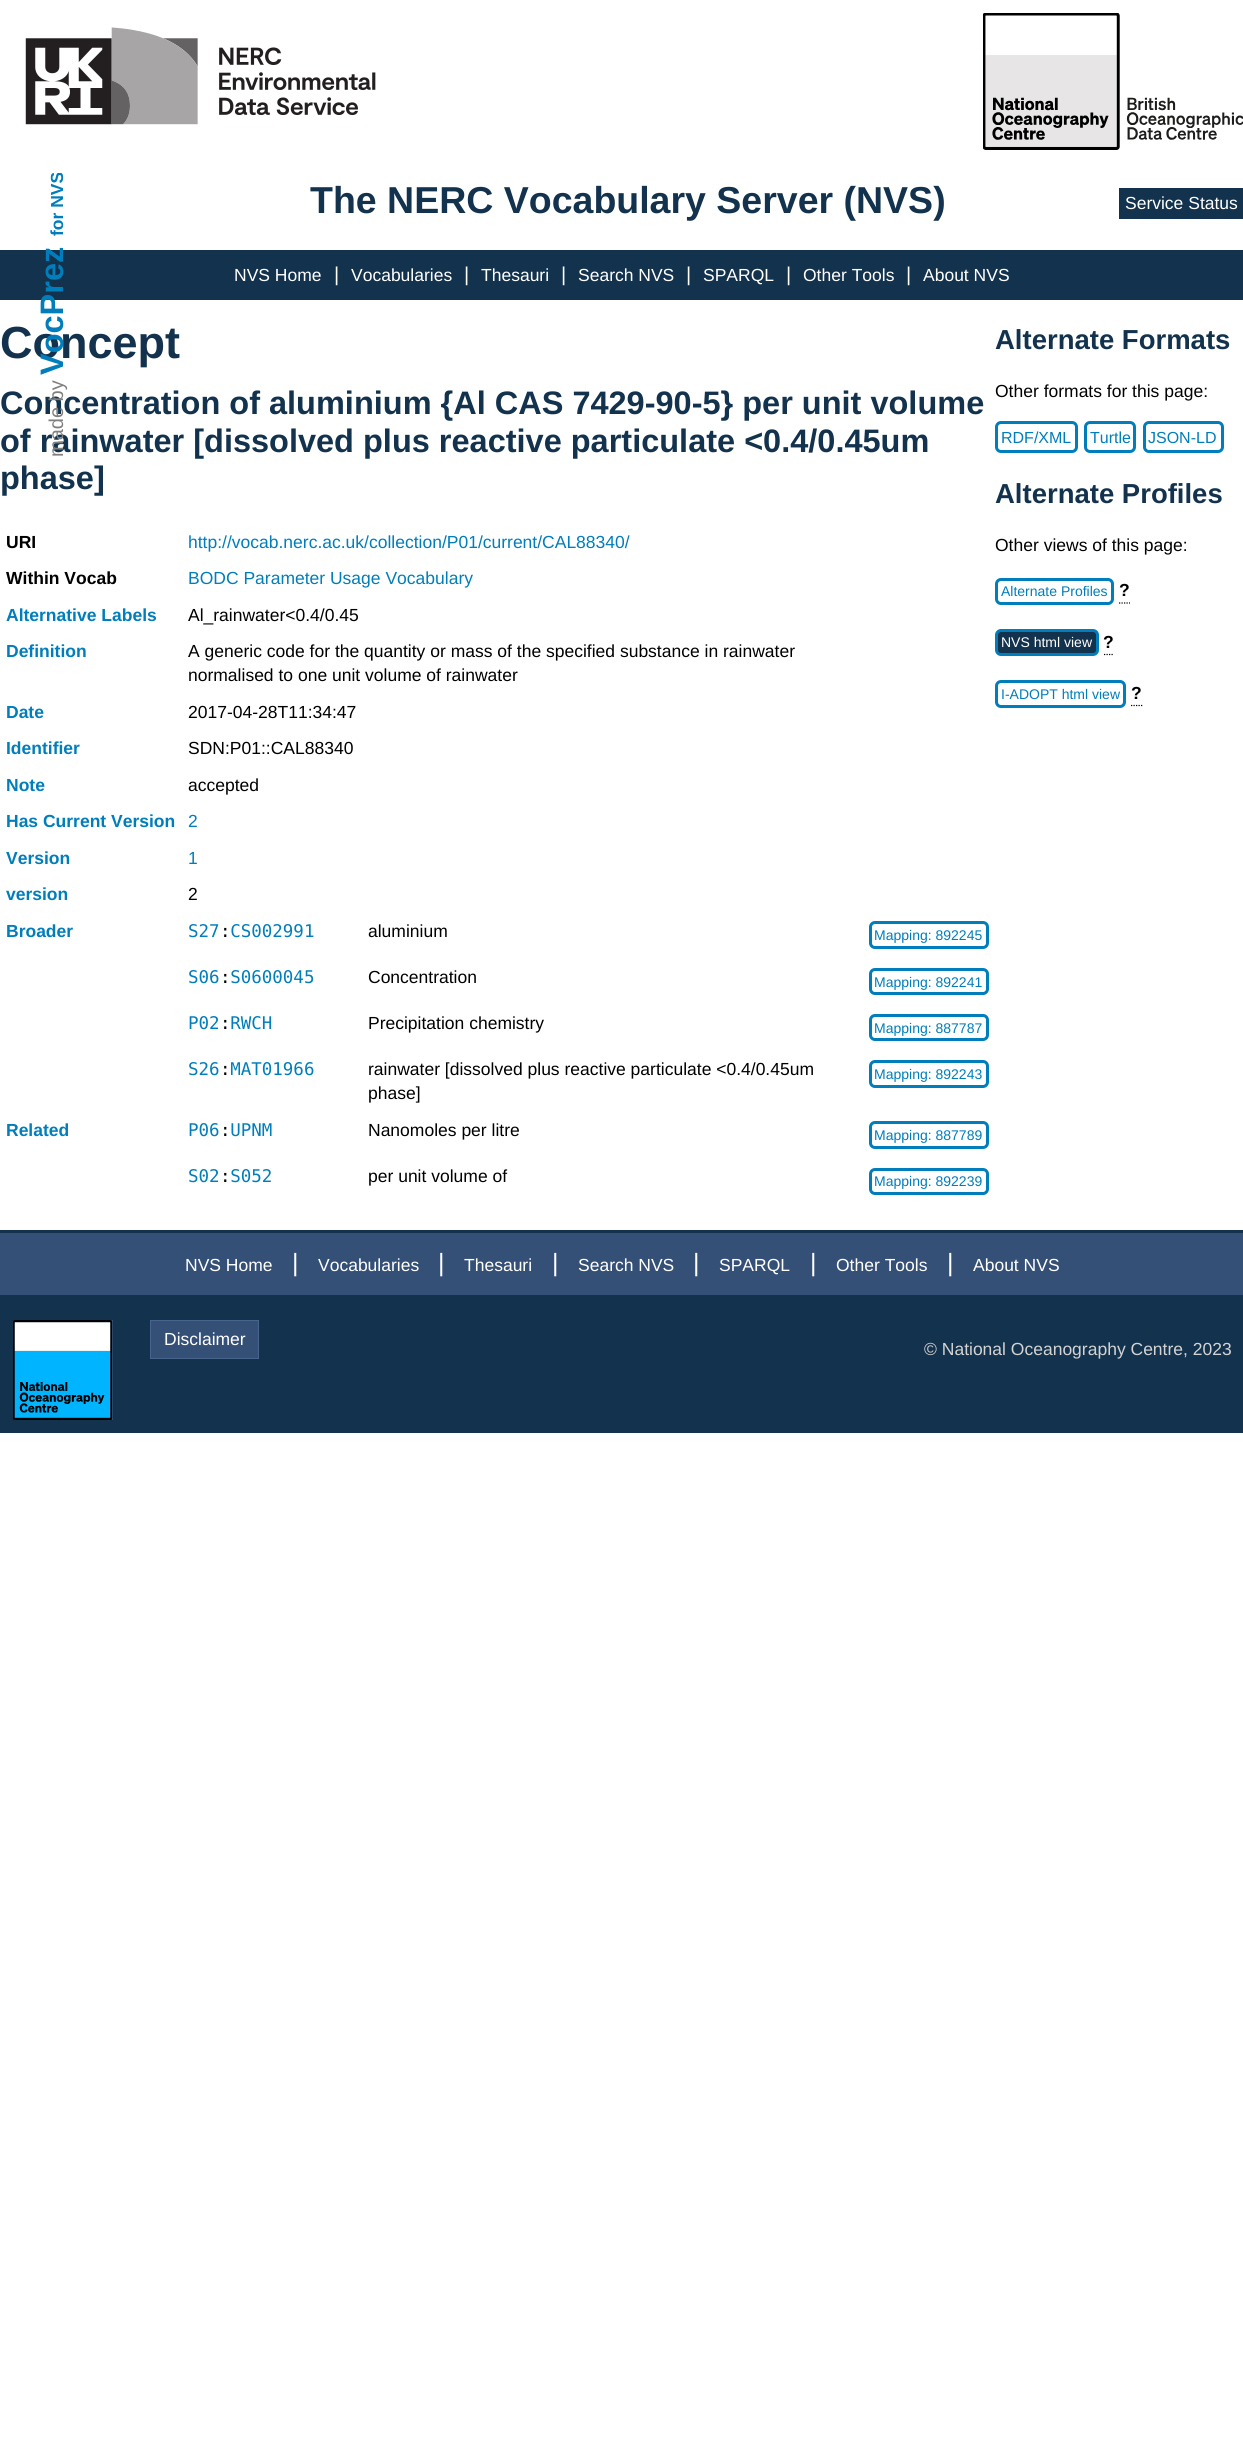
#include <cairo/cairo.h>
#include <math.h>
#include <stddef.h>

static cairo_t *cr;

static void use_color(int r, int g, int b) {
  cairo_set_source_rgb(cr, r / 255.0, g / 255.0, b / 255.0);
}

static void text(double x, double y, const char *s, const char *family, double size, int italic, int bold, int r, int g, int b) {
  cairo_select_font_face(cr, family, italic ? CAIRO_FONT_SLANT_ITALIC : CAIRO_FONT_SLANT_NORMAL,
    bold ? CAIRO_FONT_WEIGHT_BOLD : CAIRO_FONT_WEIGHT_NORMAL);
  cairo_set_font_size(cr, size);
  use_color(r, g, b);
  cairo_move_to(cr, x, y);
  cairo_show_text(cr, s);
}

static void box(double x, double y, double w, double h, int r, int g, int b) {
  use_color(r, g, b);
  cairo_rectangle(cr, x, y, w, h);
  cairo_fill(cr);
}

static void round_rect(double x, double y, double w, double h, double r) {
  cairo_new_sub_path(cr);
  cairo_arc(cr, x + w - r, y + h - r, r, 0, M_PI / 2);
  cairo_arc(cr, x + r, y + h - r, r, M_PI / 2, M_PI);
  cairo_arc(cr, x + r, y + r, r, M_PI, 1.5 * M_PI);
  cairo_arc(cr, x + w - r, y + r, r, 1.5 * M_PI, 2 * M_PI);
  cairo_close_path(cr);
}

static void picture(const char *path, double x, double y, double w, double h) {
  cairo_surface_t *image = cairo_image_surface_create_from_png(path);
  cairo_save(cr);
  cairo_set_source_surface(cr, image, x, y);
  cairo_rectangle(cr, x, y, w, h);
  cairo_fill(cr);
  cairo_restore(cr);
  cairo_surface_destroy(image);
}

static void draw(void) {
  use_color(255, 255, 255);
  cairo_paint(cr);
  picture("img_01.png", 25, 27, 351, 98);
  picture("img_02.png", 983, 13, 260, 137);
  box(1119, 188, 124, 31, 19, 50, 77);
  box(0, 250, 1243, 50, 19, 50, 77);
  round_rect(870.5, 922.5, 117, 25, 4.5);
  use_color(0, 125, 187);
  cairo_set_line_width(cr, 3);
  cairo_stroke(cr);
  round_rect(870.5, 969.5, 117, 24, 4.5);
  cairo_stroke(cr);
  round_rect(870.5, 1015.5, 117, 24, 4.5);
  cairo_stroke(cr);
  round_rect(870.5, 1061.5, 117, 25, 4.5);
  cairo_stroke(cr);
  round_rect(870.5, 1122.5, 117, 25, 4.5);
  cairo_stroke(cr);
  round_rect(870.5, 1169.5, 117, 24, 4.5);
  cairo_stroke(cr);
  round_rect(996.5, 422.5, 80, 29, 4.5);
  cairo_stroke(cr);
  round_rect(1085.5, 422.5, 49, 29, 4.5);
  cairo_stroke(cr);
  round_rect(1144.5, 422.5, 78, 29, 4.5);
  cairo_stroke(cr);
  round_rect(996.5, 579.5, 116, 24, 4.5);
  cairo_stroke(cr);
  cairo_new_path(cr);
  cairo_move_to(cr, 1119, 603);
  cairo_line_to(cr, 1130, 603);
  use_color(0, 0, 0);
  cairo_set_line_width(cr, 1.2);
  cairo_set_dash(cr, (double[]){1.25, 1.25}, 2, 0);
  cairo_stroke(cr);
  use_color(19, 50, 77);
  round_rect(996.5, 630.5, 101, 24, 4.5);
  cairo_fill_preserve(cr);
  use_color(0, 125, 187);
  cairo_set_line_width(cr, 3);
  cairo_set_dash(cr, NULL, 0, 0);
  cairo_stroke(cr);
  cairo_new_path(cr);
  cairo_move_to(cr, 1104, 654.5);
  cairo_line_to(cr, 1114, 654.5);
  use_color(0, 0, 0);
  cairo_set_line_width(cr, 1.2);
  cairo_set_dash(cr, (double[]){1.25, 1.25}, 2, 0);
  cairo_stroke(cr);
  round_rect(996.5, 681.5, 128, 25, 4.5);
  use_color(0, 125, 187);
  cairo_set_line_width(cr, 3);
  cairo_set_dash(cr, NULL, 0, 0);
  cairo_stroke(cr);
  cairo_new_path(cr);
  cairo_move_to(cr, 1131, 705.5);
  cairo_line_to(cr, 1142.5, 705.5);
  use_color(0, 0, 0);
  cairo_set_line_width(cr, 1.2);
  cairo_set_dash(cr, (double[]){1.25, 1.25}, 2, 0);
  cairo_stroke(cr);
  box(0, 1230, 1243, 3, 19, 50, 77);
  box(0, 1233, 1243, 62, 53, 80, 119);
  box(0, 1295, 1243, 138, 19, 50, 77);
  box(13, 1320, 100, 100, 53, 80, 119);
  picture("img_03.png", 13, 1320, 100, 100);
  cairo_rectangle(cr, 150.5, 1320.5, 108, 38);
  cairo_fill_preserve(cr);
  use_color(73, 100, 139);
  cairo_set_line_width(cr, 1);
  cairo_set_dash(cr, NULL, 0, 0);
  cairo_stroke(cr);
  cairo_save(cr);
  cairo_translate(cr, 63, 236);
  cairo_rotate(cr, -90 * M_PI / 180);
  text(0, 0, "for NVS", "Liberation Sans", 17.5, 0, 1, 0, 125, 187);
  cairo_restore(cr);
  text(310, 213, "The NERC Vocabulary Server (NVS)", "Liberation Sans", 37.5, 0, 1, 19, 50, 77);
  text(1125, 209, "Service Status", "Liberation Sans", 17.5, 0, 0, 255, 255, 255);
  text(234, 281, "NVS Home", "Liberation Sans", 17.5, 0, 0, 255, 255, 255);
  text(334, 281, "|", "Liberation Sans", 20, 0, 0, 255, 255, 255);
  text(351, 281, "Vocabularies", "Liberation Sans", 17.5, 0, 0, 255, 255, 255);
  text(464, 281, "|", "Liberation Sans", 20, 0, 0, 255, 255, 255);
  text(481, 281, "Thesauri", "Liberation Sans", 17.5, 0, 0, 255, 255, 255);
  text(561, 281, "|", "Liberation Sans", 20, 0, 0, 255, 255, 255);
  text(578, 281, "Search NVS", "Liberation Sans", 17.5, 0, 0, 255, 255, 255);
  text(686, 281, "|", "Liberation Sans", 20, 0, 0, 255, 255, 255);
  text(703, 281, "SPARQL", "Liberation Sans", 17.5, 0, 0, 255, 255, 255);
  text(786, 281, "|", "Liberation Sans", 20, 0, 0, 255, 255, 255);
  text(803, 281, "Other Tools", "Liberation Sans", 17.5, 0, 0, 255, 255, 255);
  text(906, 281, "|", "Liberation Sans", 20, 0, 0, 255, 255, 255);
  text(923, 281, "About NVS", "Liberation Sans", 17.5, 0, 0, 255, 255, 255);
  text(0, 358, "Concept", "Liberation Sans", 45, 0, 1, 19, 50, 77);
  cairo_save(cr);
  cairo_translate(cr, 63, 375);
  cairo_rotate(cr, -90 * M_PI / 180);
  text(0, 0, "VocPrez", "Liberation Sans", 32.5, 0, 1, 0, 125, 187);
  cairo_restore(cr);
  text(0, 414, "Concentration of aluminium {Al CAS 7429-90-5} per unit volume", "Liberation Sans", 32.5, 0, 1, 19, 50, 77);
  text(0, 452, "of rainwater [dissolved plus reactive particulate <0.4/0.45um", "Liberation Sans", 32.5, 0, 1, 19, 50, 77);
  cairo_save(cr);
  cairo_translate(cr, 63, 457);
  cairo_rotate(cr, -90 * M_PI / 180);
  text(0, 0, "made by", "Liberation Sans", 20, 0, 0, 128, 128, 128);
  cairo_restore(cr);
  text(0, 489, "phase]", "Liberation Sans", 32.5, 0, 1, 19, 50, 77);
  text(6, 548, "URI", "Liberation Sans", 17.5, 0, 1, 0, 0, 0);
  text(188, 548, "http://vocab.nerc.ac.uk/collection/P01/current/CAL88340/", "Liberation Sans", 17.5, 0, 0, 0, 125, 187);
  text(6, 584, "Within Vocab", "Liberation Sans", 17.5, 0, 1, 0, 0, 0);
  text(188, 584, "BODC Parameter Usage Vocabulary", "Liberation Sans", 17.5, 0, 0, 0, 125, 187);
  text(6, 621, "Alternative Labels", "Liberation Sans", 17.5, 0, 1, 0, 125, 187);
  text(188, 621, "Al_rainwater<0.4/0.45", "Liberation Sans", 17.5, 0, 0, 0, 0, 0);
  text(6, 657, "Definition", "Liberation Sans", 17.5, 0, 1, 0, 125, 187);
  text(188, 657, "A generic code for the quantity or mass of the specified substance in rainwater", "Liberation Sans", 17.5, 0, 0, 0, 0, 0);
  text(188, 681, "normalised to one unit volume of rainwater", "Liberation Sans", 17.5, 0, 0, 0, 0, 0);
  text(6, 718, "Date", "Liberation Sans", 17.5, 0, 1, 0, 125, 187);
  text(188, 718, "2017-04-28T11:34:47", "Liberation Sans", 17.5, 0, 0, 0, 0, 0);
  text(6, 754, "Identifier", "Liberation Sans", 17.5, 0, 1, 0, 125, 187);
  text(188, 754, "SDN:P01::CAL88340", "Liberation Sans", 17.5, 0, 0, 0, 0, 0);
  text(6, 791, "Note", "Liberation Sans", 17.5, 0, 1, 0, 125, 187);
  text(188, 791, "accepted", "Liberation Sans", 17.5, 0, 0, 0, 0, 0);
  text(6, 827, "Has Current Version", "Liberation Sans", 17.5, 0, 1, 0, 125, 187);
  text(188, 827, "2", "Liberation Sans", 17.5, 0, 0, 0, 125, 187);
  text(6, 864, "Version", "Liberation Sans", 17.5, 0, 1, 0, 125, 187);
  text(188, 864, "1", "Liberation Sans", 17.5, 0, 0, 0, 125, 187);
  text(6, 900, "version", "Liberation Sans", 17.5, 0, 1, 0, 125, 187);
  text(188, 900, "2", "Liberation Sans", 17.5, 0, 0, 0, 0, 0);
  text(6, 937, "Broader", "Liberation Sans", 17.5, 0, 1, 0, 125, 187);
  text(188, 937, "S27 CS002991", "DejaVu Sans Mono", 17.5, 0, 0, 0, 125, 187);
  text(220, 937, ":", "DejaVu Sans Mono", 17.5, 0, 0, 0, 0, 0);
  text(368, 937, "aluminium", "Liberation Sans", 17.5, 0, 0, 0, 0, 0);
  text(874, 940, "Mapping: 892245", "Liberation Sans", 14, 0, 0, 0, 125, 187);
  text(188, 983, "S06 S0600045", "DejaVu Sans Mono", 17.5, 0, 0, 0, 125, 187);
  text(220, 983, ":", "DejaVu Sans Mono", 17.5, 0, 0, 0, 0, 0);
  text(368, 983, "Concentration", "Liberation Sans", 17.5, 0, 0, 0, 0, 0);
  text(874, 987, "Mapping: 892241", "Liberation Sans", 14, 0, 0, 0, 125, 187);
  text(188, 1029, "P02 RWCH", "DejaVu Sans Mono", 17.5, 0, 0, 0, 125, 187);
  text(220, 1029, ":", "DejaVu Sans Mono", 17.5, 0, 0, 0, 0, 0);
  text(368, 1029, "Precipitation chemistry", "Liberation Sans", 17.5, 0, 0, 0, 0, 0);
  text(874, 1033, "Mapping: 887787", "Liberation Sans", 14, 0, 0, 0, 125, 187);
  text(188, 1075, "S26 MAT01966", "DejaVu Sans Mono", 17.5, 0, 0, 0, 125, 187);
  text(220, 1075, ":", "DejaVu Sans Mono", 17.5, 0, 0, 0, 0, 0);
  text(368, 1075, "rainwater [dissolved plus reactive particulate <0.4/0.45um", "Liberation Sans", 17.5, 0, 0, 0, 0, 0);
  text(368, 1099, "phase]", "Liberation Sans", 17.5, 0, 0, 0, 0, 0);
  text(874, 1079, "Mapping: 892243", "Liberation Sans", 14, 0, 0, 0, 125, 187);
  text(6, 1136, "Related", "Liberation Sans", 17.5, 0, 1, 0, 125, 187);
  text(188, 1136, "P06 UPNM", "DejaVu Sans Mono", 17.5, 0, 0, 0, 125, 187);
  text(220, 1136, ":", "DejaVu Sans Mono", 17.5, 0, 0, 0, 0, 0);
  text(368, 1136, "Nanomoles per litre", "Liberation Sans", 17.5, 0, 0, 0, 0, 0);
  text(874, 1140, "Mapping: 887789", "Liberation Sans", 14, 0, 0, 0, 125, 187);
  text(188, 1182, "S02 S052", "DejaVu Sans Mono", 17.5, 0, 0, 0, 125, 187);
  text(220, 1182, ":", "DejaVu Sans Mono", 17.5, 0, 0, 0, 0, 0);
  text(368, 1182, "per unit volume of", "Liberation Sans", 17.5, 0, 0, 0, 0, 0);
  text(874, 1186, "Mapping: 892239", "Liberation Sans", 14, 0, 0, 0, 125, 187);
  text(995, 349, "Alternate Formats", "Liberation Sans", 27.5, 0, 1, 19, 50, 77);
  text(995, 397, "Other formats for this page:", "Liberation Sans", 17.5, 0, 0, 0, 0, 0);
  text(1001, 443, "RDF/XML", "Liberation Sans", 16, 0, 0, 0, 125, 187);
  text(1090, 443, "Turtle", "Liberation Sans", 16, 0, 0, 0, 125, 187);
  text(1148, 443, "JSON-LD", "Liberation Sans", 16, 0, 0, 0, 125, 187);
  text(995, 503, "Alternate Profiles", "Liberation Sans", 27.5, 0, 1, 19, 50, 77);
  text(995, 551, "Other views of this page:", "Liberation Sans", 17.5, 0, 0, 0, 0, 0);
  text(1001, 596, "Alternate Profiles", "Liberation Sans", 14, 0, 0, 0, 125, 187);
  text(1119, 596, "?", "Liberation Sans", 17.5, 0, 1, 0, 0, 0);
  text(1001, 647, "NVS html view", "Liberation Sans", 14, 0, 0, 255, 255, 255);
  text(1103, 648, "?", "Liberation Sans", 17.5, 0, 1, 0, 0, 0);
  text(1001, 699, "I-ADOPT html view", "Liberation Sans", 14, 0, 0, 0, 125, 187);
  text(1131, 699, "?", "Liberation Sans", 17.5, 0, 1, 0, 0, 0);
  text(185, 1271, "NVS Home", "Liberation Sans", 17.5, 0, 0, 255, 255, 255);
  text(292, 1271, "|", "Liberation Sans", 25, 0, 0, 255, 255, 255);
  text(318, 1271, "Vocabularies", "Liberation Sans", 17.5, 0, 0, 255, 255, 255);
  text(438, 1271, "|", "Liberation Sans", 25, 0, 0, 255, 255, 255);
  text(464, 1271, "Thesauri", "Liberation Sans", 17.5, 0, 0, 255, 255, 255);
  text(552, 1271, "|", "Liberation Sans", 25, 0, 0, 255, 255, 255);
  text(578, 1271, "Search NVS", "Liberation Sans", 17.5, 0, 0, 255, 255, 255);
  text(693, 1271, "|", "Liberation Sans", 25, 0, 0, 255, 255, 255);
  text(719, 1271, "SPARQL", "Liberation Sans", 17.5, 0, 0, 255, 255, 255);
  text(810, 1271, "|", "Liberation Sans", 25, 0, 0, 255, 255, 255);
  text(836, 1271, "Other Tools", "Liberation Sans", 17.5, 0, 0, 255, 255, 255);
  text(947, 1271, "|", "Liberation Sans", 25, 0, 0, 255, 255, 255);
  text(973, 1271, "About NVS", "Liberation Sans", 17.5, 0, 0, 255, 255, 255);
  text(164, 1345, "Disclaimer", "Liberation Sans", 17.5, 0, 0, 255, 255, 255);
  text(924, 1355, "© National Oceanography Centre, 2023", "Liberation Sans", 17.5, 0, 0, 211, 211, 211);
}

int main(void) {
  cairo_surface_t *surface = cairo_image_surface_create(CAIRO_FORMAT_RGB24, 1243, 2458);
  cr = cairo_create(surface);
  cairo_font_options_t *options = cairo_font_options_create();
  cairo_font_options_set_hint_metrics(options, CAIRO_HINT_METRICS_OFF);
  cairo_font_options_set_hint_style(options, CAIRO_HINT_STYLE_NONE);
  cairo_set_font_options(cr, options);
  cairo_set_miter_limit(cr, 4);
  draw();
  cairo_surface_write_to_png(surface, "out.png");
  cairo_font_options_destroy(options);
  cairo_destroy(cr);
  cairo_surface_destroy(surface);
  return 0;
}
